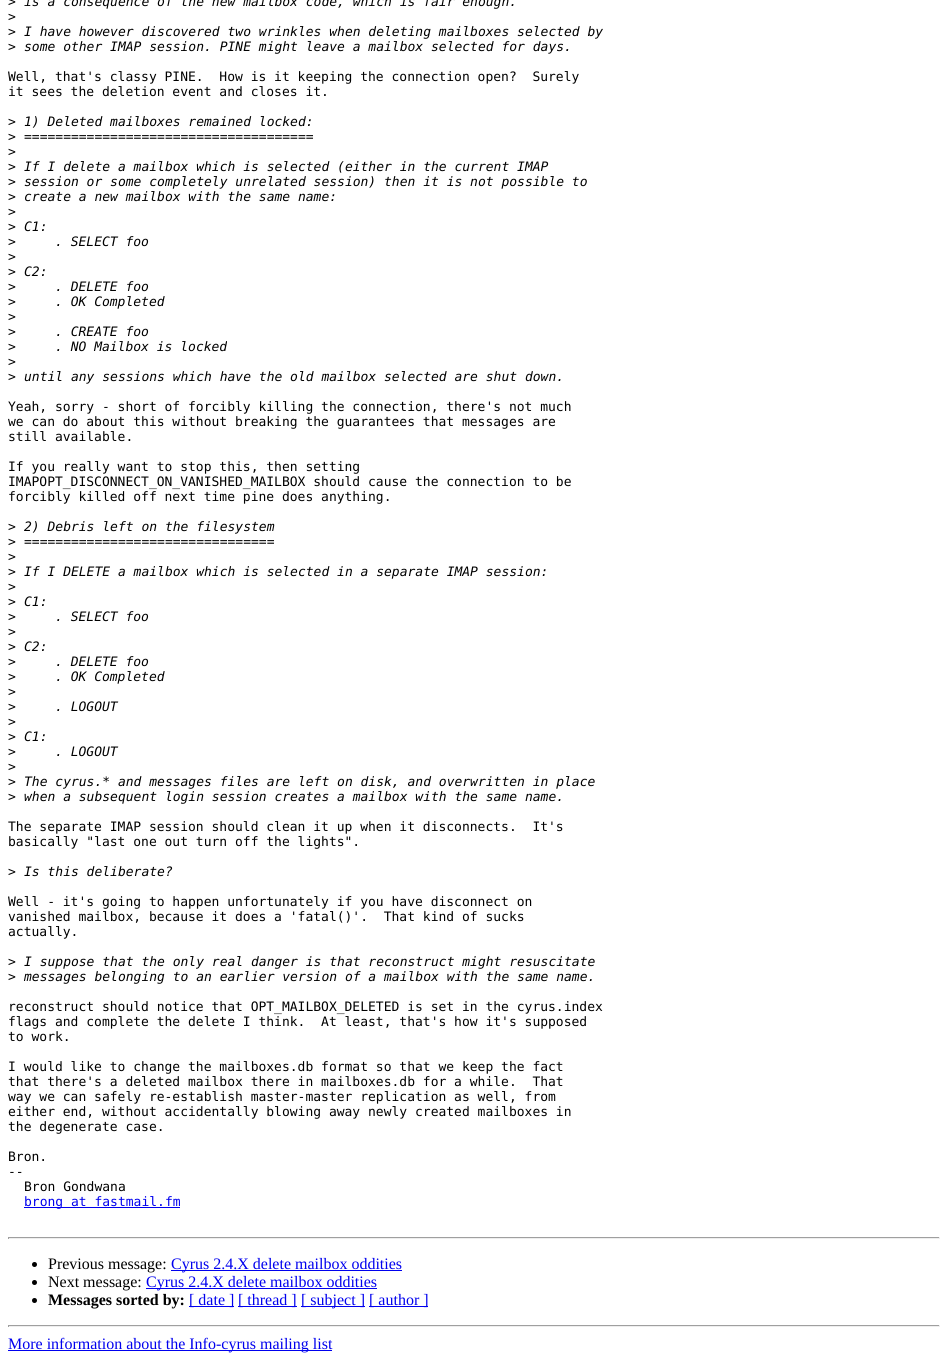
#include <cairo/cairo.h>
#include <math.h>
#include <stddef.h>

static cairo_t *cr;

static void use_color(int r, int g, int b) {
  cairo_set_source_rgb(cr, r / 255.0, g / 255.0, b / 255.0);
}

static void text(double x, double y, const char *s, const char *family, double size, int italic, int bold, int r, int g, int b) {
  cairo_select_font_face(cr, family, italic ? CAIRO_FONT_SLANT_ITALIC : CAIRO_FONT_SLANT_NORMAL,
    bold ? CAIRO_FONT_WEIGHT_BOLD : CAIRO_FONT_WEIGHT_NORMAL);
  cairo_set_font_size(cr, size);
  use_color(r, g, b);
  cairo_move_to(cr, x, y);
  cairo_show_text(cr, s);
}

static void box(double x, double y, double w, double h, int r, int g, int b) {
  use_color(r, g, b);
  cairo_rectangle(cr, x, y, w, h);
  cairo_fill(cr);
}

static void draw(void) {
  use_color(255, 255, 255);
  cairo_paint(cr);
  box(24, 1207, 156, 1, 0, 0, 238);
  box(8, 1237, 932, 1, 159, 159, 159);
  box(939, 1237, 1, 2, 238, 238, 238);
  box(8, 1238, 932, 1, 238, 238, 238);
  box(8, 1237, 1, 2, 159, 159, 159);
  use_color(0, 0, 0);
  cairo_arc(cr, 34.5, 1264.5, 2.5, 0, 2 * M_PI);
  cairo_fill(cr);
  box(171, 1270, 231, 1, 0, 0, 238);
  use_color(0, 0, 0);
  cairo_arc(cr, 34.5, 1282.5, 2.5, 0, 2 * M_PI);
  cairo_fill(cr);
  box(146, 1288, 231, 1, 0, 0, 238);
  use_color(0, 0, 0);
  cairo_arc(cr, 34.5, 1300.5, 2.5, 0, 2 * M_PI);
  cairo_fill(cr);
  box(189, 1306, 45, 1, 0, 0, 238);
  box(238, 1306, 59, 1, 0, 0, 238);
  box(301, 1306, 64, 1, 0, 0, 238);
  box(369, 1306, 59, 1, 0, 0, 238);
  box(8, 1325, 932, 1, 159, 159, 159);
  box(939, 1325, 1, 2, 238, 238, 238);
  box(8, 1326, 932, 1, 238, 238, 238);
  box(8, 1325, 1, 2, 159, 159, 159);
  box(8, 1350, 324, 1, 0, 0, 238);
  text(8, 6, ">", "DejaVu Sans Mono", 13, 0, 0, 0, 0, 0);
  text(24, 6, "is a consequence of the new mailbox code, which is fair enough.", "DejaVu Sans Mono", 13, 1, 0, 0, 0, 0);
  text(8, 21, ">", "DejaVu Sans Mono", 13, 0, 0, 0, 0, 0);
  text(8, 36, ">", "DejaVu Sans Mono", 13, 0, 0, 0, 0, 0);
  text(24, 36, "I have however discovered two wrinkles when deleting mailboxes selected by", "DejaVu Sans Mono", 13, 1, 0, 0, 0, 0);
  text(8, 51, ">", "DejaVu Sans Mono", 13, 0, 0, 0, 0, 0);
  text(24, 51, "some other IMAP session. PINE might leave a mailbox selected for days.", "DejaVu Sans Mono", 13, 1, 0, 0, 0, 0);
  text(8, 81, "Well, that's classy PINE.  How is it keeping the connection open?  Surely", "DejaVu Sans Mono", 13, 0, 0, 0, 0, 0);
  text(8, 96, "it sees the deletion event and closes it.", "DejaVu Sans Mono", 13, 0, 0, 0, 0, 0);
  text(8, 126, ">", "DejaVu Sans Mono", 13, 0, 0, 0, 0, 0);
  text(24, 126, "1) Deleted mailboxes remained locked:", "DejaVu Sans Mono", 13, 1, 0, 0, 0, 0);
  text(8, 141, ">", "DejaVu Sans Mono", 13, 0, 0, 0, 0, 0);
  text(24, 141, "=====================================", "DejaVu Sans Mono", 13, 1, 0, 0, 0, 0);
  text(8, 156, ">", "DejaVu Sans Mono", 13, 0, 0, 0, 0, 0);
  text(8, 171, ">", "DejaVu Sans Mono", 13, 0, 0, 0, 0, 0);
  text(24, 171, "If I delete a mailbox which is selected (either in the current IMAP", "DejaVu Sans Mono", 13, 1, 0, 0, 0, 0);
  text(8, 186, ">", "DejaVu Sans Mono", 13, 0, 0, 0, 0, 0);
  text(24, 186, "session or some completely unrelated session) then it is not possible to", "DejaVu Sans Mono", 13, 1, 0, 0, 0, 0);
  text(8, 201, ">", "DejaVu Sans Mono", 13, 0, 0, 0, 0, 0);
  text(24, 201, "create a new mailbox with the same name:", "DejaVu Sans Mono", 13, 1, 0, 0, 0, 0);
  text(8, 216, ">", "DejaVu Sans Mono", 13, 0, 0, 0, 0, 0);
  text(8, 231, ">", "DejaVu Sans Mono", 13, 0, 0, 0, 0, 0);
  text(24, 231, "C1:", "DejaVu Sans Mono", 13, 1, 0, 0, 0, 0);
  text(8, 246, ">", "DejaVu Sans Mono", 13, 0, 0, 0, 0, 0);
  text(55, 246, ". SELECT foo", "DejaVu Sans Mono", 13, 1, 0, 0, 0, 0);
  text(8, 261, ">", "DejaVu Sans Mono", 13, 0, 0, 0, 0, 0);
  text(8, 276, ">", "DejaVu Sans Mono", 13, 0, 0, 0, 0, 0);
  text(24, 276, "C2:", "DejaVu Sans Mono", 13, 1, 0, 0, 0, 0);
  text(8, 291, ">", "DejaVu Sans Mono", 13, 0, 0, 0, 0, 0);
  text(55, 291, ". DELETE foo", "DejaVu Sans Mono", 13, 1, 0, 0, 0, 0);
  text(8, 306, ">", "DejaVu Sans Mono", 13, 0, 0, 0, 0, 0);
  text(55, 306, ". OK Completed", "DejaVu Sans Mono", 13, 1, 0, 0, 0, 0);
  text(8, 321, ">", "DejaVu Sans Mono", 13, 0, 0, 0, 0, 0);
  text(8, 336, ">", "DejaVu Sans Mono", 13, 0, 0, 0, 0, 0);
  text(55, 336, ". CREATE foo", "DejaVu Sans Mono", 13, 1, 0, 0, 0, 0);
  text(8, 351, ">", "DejaVu Sans Mono", 13, 0, 0, 0, 0, 0);
  text(55, 351, ". NO Mailbox is locked", "DejaVu Sans Mono", 13, 1, 0, 0, 0, 0);
  text(8, 366, ">", "DejaVu Sans Mono", 13, 0, 0, 0, 0, 0);
  text(8, 381, ">", "DejaVu Sans Mono", 13, 0, 0, 0, 0, 0);
  text(24, 381, "until any sessions which have the old mailbox selected are shut down.", "DejaVu Sans Mono", 13, 1, 0, 0, 0, 0);
  text(8, 411, "Yeah, sorry - short of forcibly killing the connection, there's not much", "DejaVu Sans Mono", 13, 0, 0, 0, 0, 0);
  text(8, 426, "we can do about this without breaking the guarantees that messages are", "DejaVu Sans Mono", 13, 0, 0, 0, 0, 0);
  text(8, 441, "still available.", "DejaVu Sans Mono", 13, 0, 0, 0, 0, 0);
  text(8, 471, "If you really want to stop this, then setting", "DejaVu Sans Mono", 13, 0, 0, 0, 0, 0);
  text(8, 486, "IMAPOPT_DISCONNECT_ON_VANISHED_MAILBOX should cause the connection to be", "DejaVu Sans Mono", 13, 0, 0, 0, 0, 0);
  text(8, 501, "forcibly killed off next time pine does anything.", "DejaVu Sans Mono", 13, 0, 0, 0, 0, 0);
  text(8, 531, ">", "DejaVu Sans Mono", 13, 0, 0, 0, 0, 0);
  text(24, 531, "2) Debris left on the filesystem", "DejaVu Sans Mono", 13, 1, 0, 0, 0, 0);
  text(8, 546, ">", "DejaVu Sans Mono", 13, 0, 0, 0, 0, 0);
  text(24, 546, "================================", "DejaVu Sans Mono", 13, 1, 0, 0, 0, 0);
  text(8, 561, ">", "DejaVu Sans Mono", 13, 0, 0, 0, 0, 0);
  text(8, 576, ">", "DejaVu Sans Mono", 13, 0, 0, 0, 0, 0);
  text(24, 576, "If I DELETE a mailbox which is selected in a separate IMAP session:", "DejaVu Sans Mono", 13, 1, 0, 0, 0, 0);
  text(8, 591, ">", "DejaVu Sans Mono", 13, 0, 0, 0, 0, 0);
  text(8, 606, ">", "DejaVu Sans Mono", 13, 0, 0, 0, 0, 0);
  text(24, 606, "C1:", "DejaVu Sans Mono", 13, 1, 0, 0, 0, 0);
  text(8, 621, ">", "DejaVu Sans Mono", 13, 0, 0, 0, 0, 0);
  text(55, 621, ". SELECT foo", "DejaVu Sans Mono", 13, 1, 0, 0, 0, 0);
  text(8, 636, ">", "DejaVu Sans Mono", 13, 0, 0, 0, 0, 0);
  text(8, 651, ">", "DejaVu Sans Mono", 13, 0, 0, 0, 0, 0);
  text(24, 651, "C2:", "DejaVu Sans Mono", 13, 1, 0, 0, 0, 0);
  text(8, 666, ">", "DejaVu Sans Mono", 13, 0, 0, 0, 0, 0);
  text(55, 666, ". DELETE foo", "DejaVu Sans Mono", 13, 1, 0, 0, 0, 0);
  text(8, 681, ">", "DejaVu Sans Mono", 13, 0, 0, 0, 0, 0);
  text(55, 681, ". OK Completed", "DejaVu Sans Mono", 13, 1, 0, 0, 0, 0);
  text(8, 696, ">", "DejaVu Sans Mono", 13, 0, 0, 0, 0, 0);
  text(8, 711, ">", "DejaVu Sans Mono", 13, 0, 0, 0, 0, 0);
  text(55, 711, ". LOGOUT", "DejaVu Sans Mono", 13, 1, 0, 0, 0, 0);
  text(8, 726, ">", "DejaVu Sans Mono", 13, 0, 0, 0, 0, 0);
  text(8, 741, ">", "DejaVu Sans Mono", 13, 0, 0, 0, 0, 0);
  text(24, 741, "C1:", "DejaVu Sans Mono", 13, 1, 0, 0, 0, 0);
  text(8, 756, ">", "DejaVu Sans Mono", 13, 0, 0, 0, 0, 0);
  text(55, 756, ". LOGOUT", "DejaVu Sans Mono", 13, 1, 0, 0, 0, 0);
  text(8, 771, ">", "DejaVu Sans Mono", 13, 0, 0, 0, 0, 0);
  text(8, 786, ">", "DejaVu Sans Mono", 13, 0, 0, 0, 0, 0);
  text(24, 786, "The cyrus.* and messages files are left on disk, and overwritten in place", "DejaVu Sans Mono", 13, 1, 0, 0, 0, 0);
  text(8, 801, ">", "DejaVu Sans Mono", 13, 0, 0, 0, 0, 0);
  text(24, 801, "when a subsequent login session creates a mailbox with the same name.", "DejaVu Sans Mono", 13, 1, 0, 0, 0, 0);
  text(8, 831, "The separate IMAP session should clean it up when it disconnects.  It's", "DejaVu Sans Mono", 13, 0, 0, 0, 0, 0);
  text(8, 846, "basically \"last one out turn off the lights\".", "DejaVu Sans Mono", 13, 0, 0, 0, 0, 0);
  text(8, 876, ">", "DejaVu Sans Mono", 13, 0, 0, 0, 0, 0);
  text(24, 876, "Is this deliberate?", "DejaVu Sans Mono", 13, 1, 0, 0, 0, 0);
  text(8, 906, "Well - it's going to happen unfortunately if you have disconnect on", "DejaVu Sans Mono", 13, 0, 0, 0, 0, 0);
  text(8, 921, "vanished mailbox, because it does a 'fatal()'.  That kind of sucks", "DejaVu Sans Mono", 13, 0, 0, 0, 0, 0);
  text(8, 936, "actually.", "DejaVu Sans Mono", 13, 0, 0, 0, 0, 0);
  text(8, 966, ">", "DejaVu Sans Mono", 13, 0, 0, 0, 0, 0);
  text(24, 966, "I suppose that the only real danger is that reconstruct might resuscitate", "DejaVu Sans Mono", 13, 1, 0, 0, 0, 0);
  text(8, 981, ">", "DejaVu Sans Mono", 13, 0, 0, 0, 0, 0);
  text(24, 981, "messages belonging to an earlier version of a mailbox with the same name.", "DejaVu Sans Mono", 13, 1, 0, 0, 0, 0);
  text(8, 1011, "reconstruct should notice that OPT_MAILBOX_DELETED is set in the cyrus.index", "DejaVu Sans Mono", 13, 0, 0, 0, 0, 0);
  text(8, 1026, "flags and complete the delete I think.  At least, that's how it's supposed", "DejaVu Sans Mono", 13, 0, 0, 0, 0, 0);
  text(8, 1041, "to work.", "DejaVu Sans Mono", 13, 0, 0, 0, 0, 0);
  text(8, 1071, "I would like to change the mailboxes.db format so that we keep the fact", "DejaVu Sans Mono", 13, 0, 0, 0, 0, 0);
  text(8, 1086, "that there's a deleted mailbox there in mailboxes.db for a while.  That", "DejaVu Sans Mono", 13, 0, 0, 0, 0, 0);
  text(8, 1101, "way we can safely re-establish master-master replication as well, from", "DejaVu Sans Mono", 13, 0, 0, 0, 0, 0);
  text(8, 1116, "either end, without accidentally blowing away newly created mailboxes in", "DejaVu Sans Mono", 13, 0, 0, 0, 0, 0);
  text(8, 1131, "the degenerate case.", "DejaVu Sans Mono", 13, 0, 0, 0, 0, 0);
  text(8, 1161, "Bron.", "DejaVu Sans Mono", 13, 0, 0, 0, 0, 0);
  text(8, 1176, "--", "DejaVu Sans Mono", 13, 0, 0, 0, 0, 0);
  text(24, 1191, "Bron Gondwana", "DejaVu Sans Mono", 13, 0, 0, 0, 0, 0);
  text(24, 1206, "brong at fastmail.fm", "DejaVu Sans Mono", 13, 0, 0, 0, 0, 238);
  text(48, 1269, "Previous message:", "Liberation Serif", 16, 0, 0, 0, 0, 0);
  text(171, 1269, "Cyrus 2.4.X delete mailbox oddities", "Liberation Serif", 16, 0, 0, 0, 0, 238);
  text(48, 1287, "Next message:", "Liberation Serif", 16, 0, 0, 0, 0, 0);
  text(146, 1287, "Cyrus 2.4.X delete mailbox oddities", "Liberation Serif", 16, 0, 0, 0, 0, 238);
  text(48, 1305, "Messages sorted by:", "Liberation Serif", 16, 0, 1, 0, 0, 0);
  text(189, 1305, "[ date ]", "Liberation Serif", 16, 0, 0, 0, 0, 238);
  text(238, 1305, "[ thread ]", "Liberation Serif", 16, 0, 0, 0, 0, 238);
  text(301, 1305, "[ subject ]", "Liberation Serif", 16, 0, 0, 0, 0, 238);
  text(369, 1305, "[ author ]", "Liberation Serif", 16, 0, 0, 0, 0, 238);
  text(8, 1349, "More information about the Info-cyrus mailing list", "Liberation Serif", 16, 0, 0, 0, 0, 238);
}

int main(void) {
  cairo_surface_t *surface = cairo_image_surface_create(CAIRO_FORMAT_RGB24, 948, 1361);
  cr = cairo_create(surface);
  cairo_font_options_t *options = cairo_font_options_create();
  cairo_font_options_set_hint_metrics(options, CAIRO_HINT_METRICS_OFF);
  cairo_font_options_set_hint_style(options, CAIRO_HINT_STYLE_NONE);
  cairo_set_font_options(cr, options);
  cairo_set_miter_limit(cr, 4);
  draw();
  cairo_surface_write_to_png(surface, "out.png");
  cairo_font_options_destroy(options);
  cairo_destroy(cr);
  cairo_surface_destroy(surface);
  return 0;
}
